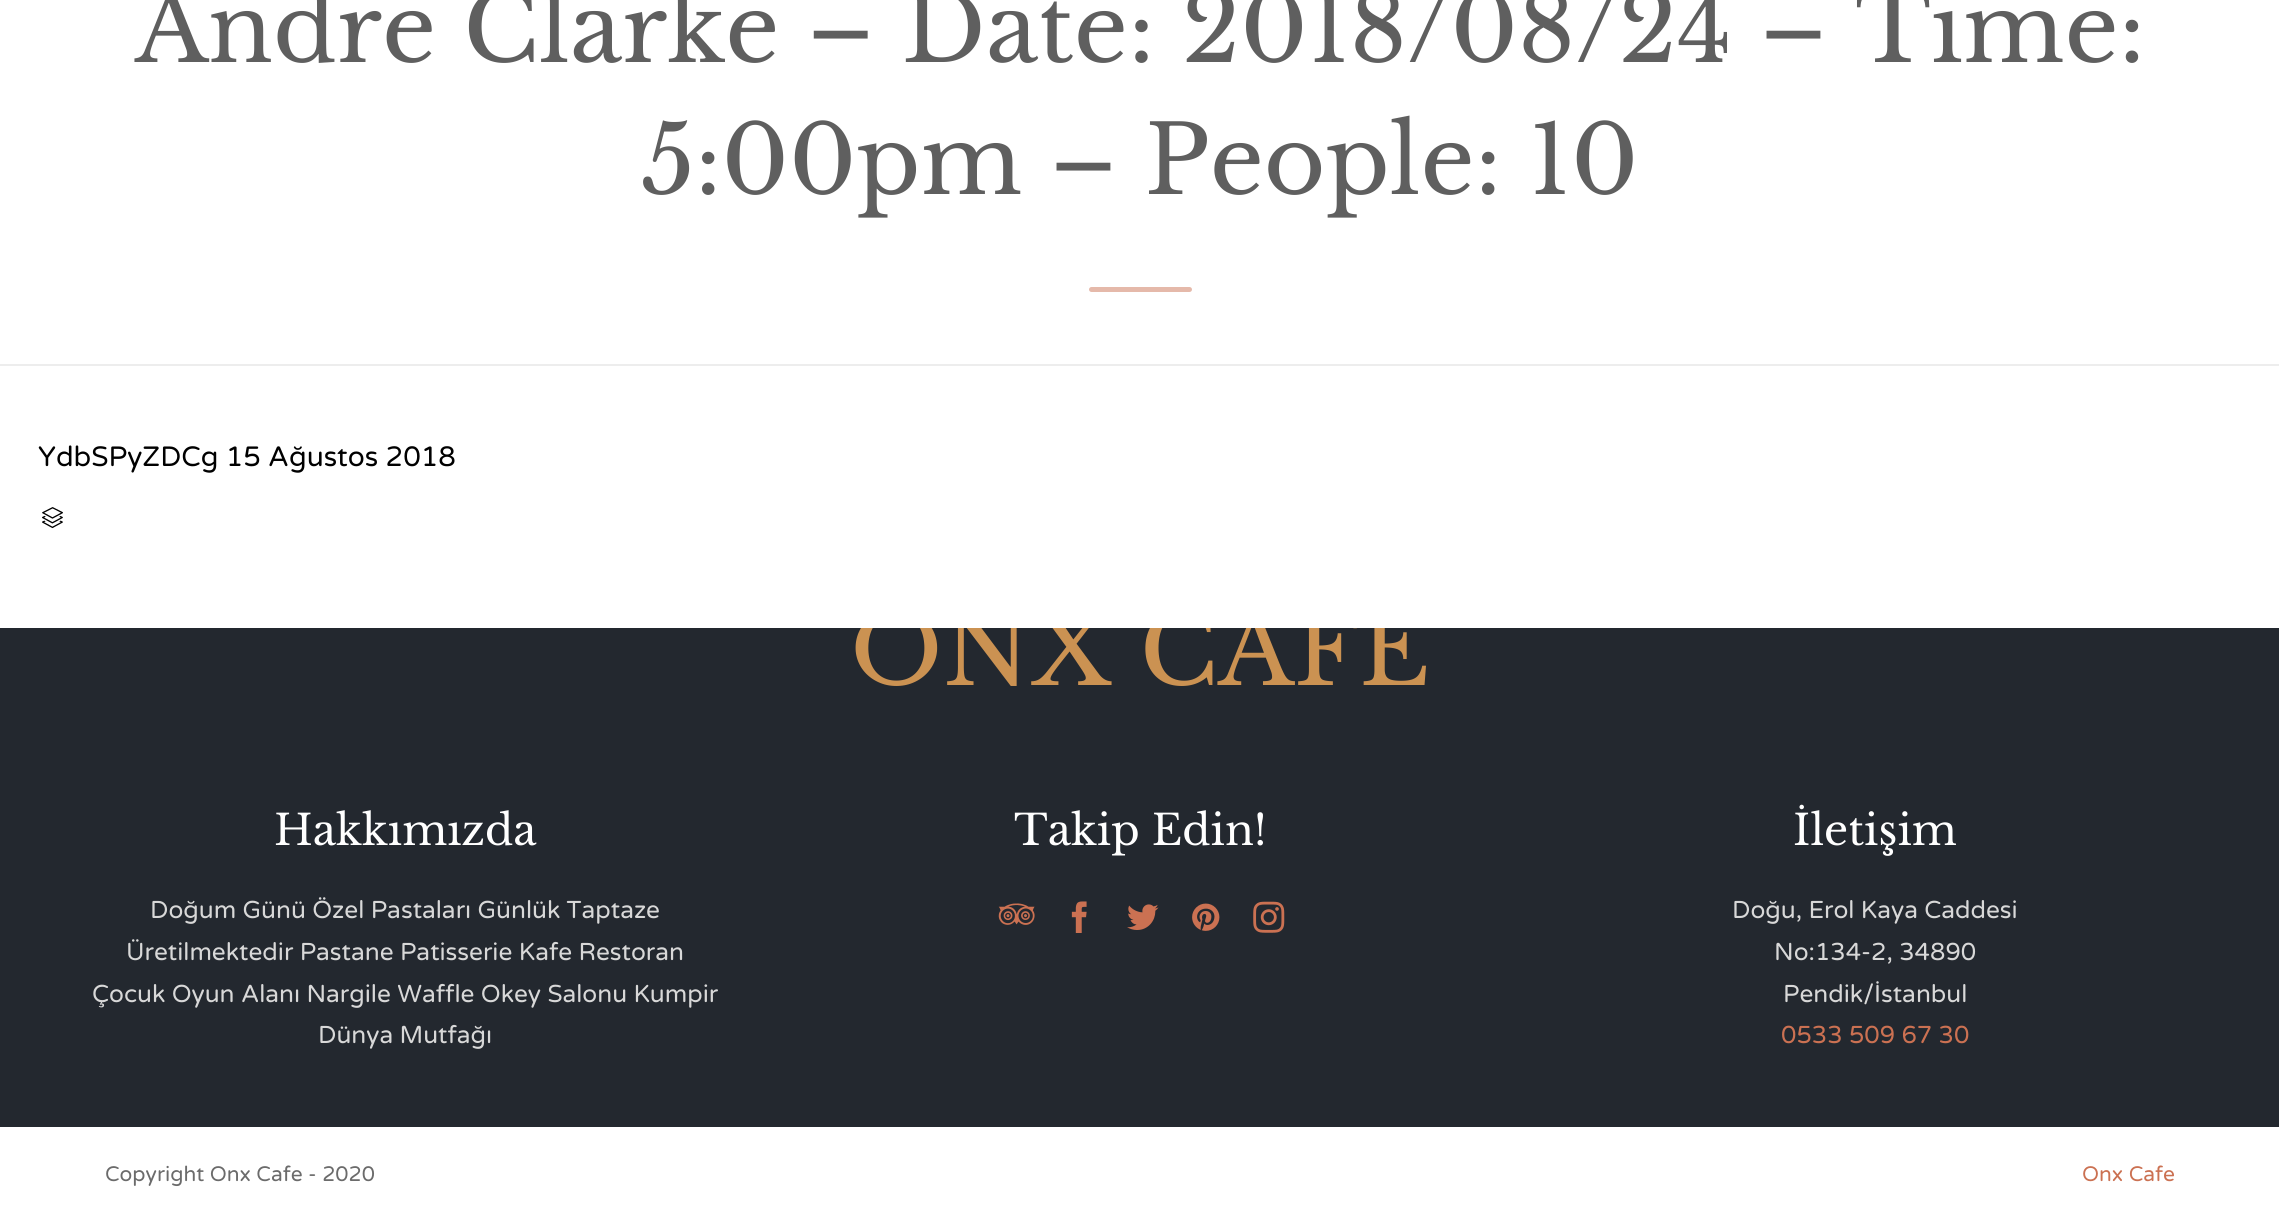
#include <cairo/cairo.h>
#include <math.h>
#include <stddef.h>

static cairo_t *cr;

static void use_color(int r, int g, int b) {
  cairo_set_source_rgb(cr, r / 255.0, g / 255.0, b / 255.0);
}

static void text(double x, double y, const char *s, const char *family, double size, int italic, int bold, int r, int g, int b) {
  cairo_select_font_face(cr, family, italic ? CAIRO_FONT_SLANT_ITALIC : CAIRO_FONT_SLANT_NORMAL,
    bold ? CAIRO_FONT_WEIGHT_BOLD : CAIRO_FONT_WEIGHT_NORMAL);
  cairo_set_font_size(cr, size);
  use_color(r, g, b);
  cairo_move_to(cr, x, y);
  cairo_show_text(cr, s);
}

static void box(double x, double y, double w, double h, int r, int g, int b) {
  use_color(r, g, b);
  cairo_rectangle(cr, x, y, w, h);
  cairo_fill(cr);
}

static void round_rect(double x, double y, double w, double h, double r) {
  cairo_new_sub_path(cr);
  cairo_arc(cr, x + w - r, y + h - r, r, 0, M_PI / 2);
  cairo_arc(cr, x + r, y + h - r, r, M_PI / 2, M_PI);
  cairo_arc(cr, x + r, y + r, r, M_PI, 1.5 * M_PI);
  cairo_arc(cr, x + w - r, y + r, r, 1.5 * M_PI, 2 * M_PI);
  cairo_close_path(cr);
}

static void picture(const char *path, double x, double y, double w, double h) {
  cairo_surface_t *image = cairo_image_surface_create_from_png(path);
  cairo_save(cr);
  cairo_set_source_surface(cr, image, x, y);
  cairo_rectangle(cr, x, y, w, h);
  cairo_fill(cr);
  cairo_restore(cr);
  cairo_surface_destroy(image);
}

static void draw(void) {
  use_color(255, 255, 255);
  cairo_paint(cr);
  box(0, 364, 2279, 2, 237, 237, 237);
  use_color(229, 185, 170);
  round_rect(1089, 287, 103, 5, 2.5);
  cairo_fill(cr);
  picture("img_01.png", 42, 507, 21, 22);
  box(0, 628, 2279, 499, 35, 40, 47);
  picture("img_02.png", 998, 903, 37, 22);
  picture("img_03.png", 1071, 901, 16, 32);
  picture("img_04.png", 1127, 904, 32, 26);
  picture("img_05.png", 1192, 903, 28, 28);
  picture("img_06.png", 1253, 901, 32, 32);
  text(135, 62, "Andre Clarke – Date: 2018/08/24 – Time:", "Libre Baskerville", 94.5, 0, 0, 95, 95, 95);
  text(641, 194, "5:00pm – People: 10", "Libre Baskerville", 94.5, 0, 0, 95, 95, 95);
  text(38, 466, "YdbSPyZDCg 15 Ağustos 2018", "Varela Round", 28, 0, 0, 0, 0, 0);
  text(850, 685, "ONX CAFE", "Libre Baskerville", 98, 0, 0, 203, 146, 82);
  box(861, 608, 562, 20, 255, 255, 255);
  text(274, 845, "Hakkımızda", "Libre Baskerville", 42, 0, 0, 255, 255, 255);
  text(150, 918, "Doğum Günü Özel Pastaları Günlük Taptaze", "Varela Round", 24.5, 0, 0, 216, 216, 216);
  text(126, 960, "Üretilmektedir Pastane Patisserie Kafe Restoran", "Varela Round", 24.5, 0, 0, 216, 216, 216);
  text(92, 1002, "Çocuk Oyun Alanı Nargile Waffle Okey Salonu Kumpir", "Varela Round", 24.5, 0, 0, 216, 216, 216);
  text(318, 1043, "Dünya Mutfağı", "Varela Round", 24.5, 0, 0, 216, 216, 216);
  text(1014, 845, "Takip Edin!", "Libre Baskerville", 42, 0, 0, 255, 255, 255);
  text(1793, 845, "İletişim", "Libre Baskerville", 42, 0, 0, 255, 255, 255);
  text(1732, 918, "Doğu, Erol Kaya Caddesi", "Varela Round", 24.5, 0, 0, 216, 216, 216);
  text(1774, 960, "No:134-2, 34890", "Varela Round", 24.5, 0, 0, 216, 216, 216);
  text(1783, 1002, "Pendik/İstanbul", "Varela Round", 24.5, 0, 0, 216, 216, 216);
  text(1781, 1043, "0533 509 67 30", "Varela Round", 24.5, 0, 0, 203, 113, 82);
  text(105, 1181, "Copyright Onx Cafe - 2020", "Varela Round", 21, 0, 0, 107, 107, 107);
  text(2082, 1181, "Onx Cafe", "Varela Round", 21, 0, 0, 203, 113, 82);
}

int main(void) {
  cairo_surface_t *surface = cairo_image_surface_create(CAIRO_FORMAT_RGB24, 2279, 1221);
  cr = cairo_create(surface);
  cairo_font_options_t *options = cairo_font_options_create();
  cairo_font_options_set_hint_metrics(options, CAIRO_HINT_METRICS_OFF);
  cairo_font_options_set_hint_style(options, CAIRO_HINT_STYLE_NONE);
  cairo_set_font_options(cr, options);
  cairo_set_miter_limit(cr, 4);
  draw();
  cairo_surface_write_to_png(surface, "out.png");
  cairo_font_options_destroy(options);
  cairo_destroy(cr);
  cairo_surface_destroy(surface);
  return 0;
}
